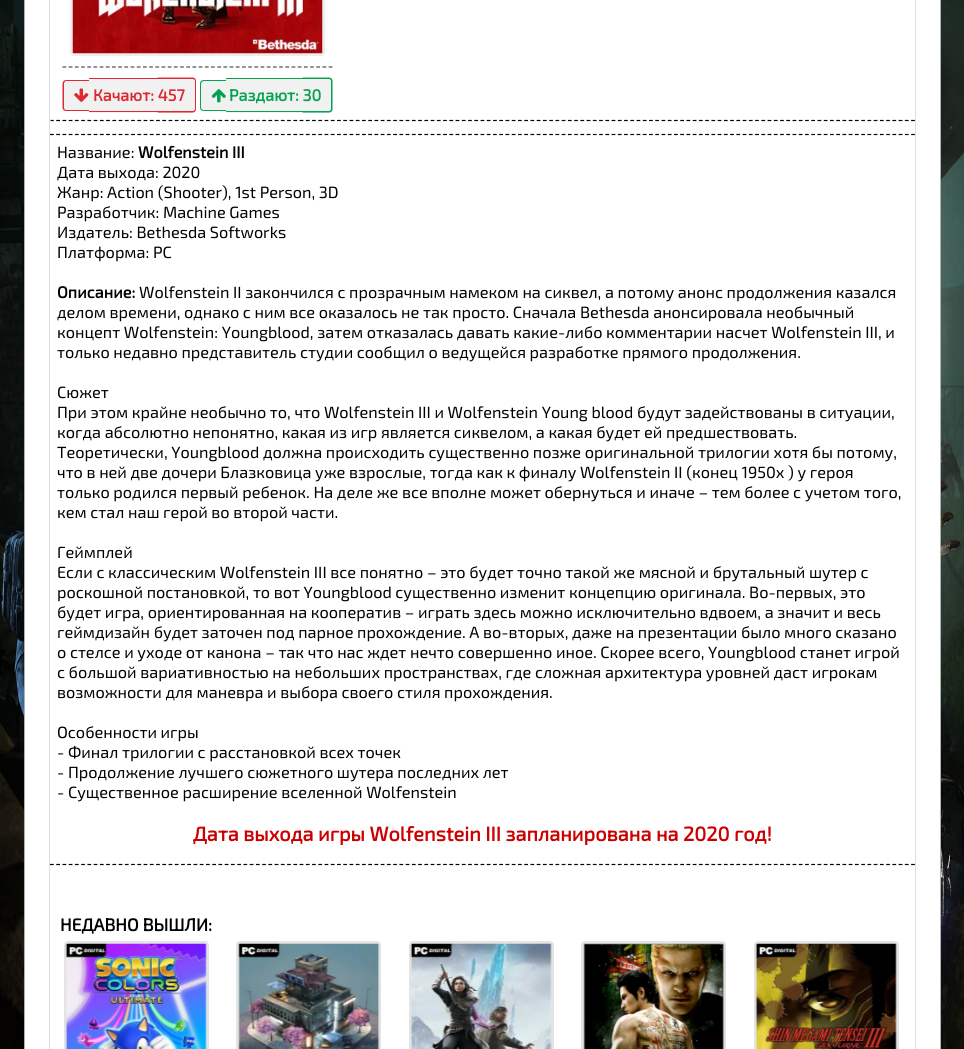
#include <cairo/cairo.h>
#include <math.h>
#include <stddef.h>

static cairo_t *cr;

static void use_color(int r, int g, int b) {
  cairo_set_source_rgb(cr, r / 255.0, g / 255.0, b / 255.0);
}

static void text(double x, double y, const char *s, const char *family, double size, int italic, int bold, int r, int g, int b) {
  cairo_select_font_face(cr, family, italic ? CAIRO_FONT_SLANT_ITALIC : CAIRO_FONT_SLANT_NORMAL,
    bold ? CAIRO_FONT_WEIGHT_BOLD : CAIRO_FONT_WEIGHT_NORMAL);
  cairo_set_font_size(cr, size);
  use_color(r, g, b);
  cairo_move_to(cr, x, y);
  cairo_show_text(cr, s);
}

static void box(double x, double y, double w, double h, int r, int g, int b) {
  use_color(r, g, b);
  cairo_rectangle(cr, x, y, w, h);
  cairo_fill(cr);
}

static void round_rect(double x, double y, double w, double h, double r) {
  cairo_new_sub_path(cr);
  cairo_arc(cr, x + w - r, y + h - r, r, 0, M_PI / 2);
  cairo_arc(cr, x + r, y + h - r, r, M_PI / 2, M_PI);
  cairo_arc(cr, x + r, y + r, r, M_PI, 1.5 * M_PI);
  cairo_arc(cr, x + w - r, y + r, r, 1.5 * M_PI, 2 * M_PI);
  cairo_close_path(cr);
}

static void picture(const char *path, double x, double y, double w, double h) {
  cairo_surface_t *image = cairo_image_surface_create_from_png(path);
  cairo_save(cr);
  cairo_set_source_surface(cr, image, x, y);
  cairo_rectangle(cr, x, y, w, h);
  cairo_fill(cr);
  cairo_restore(cr);
  cairo_surface_destroy(image);
}

static void draw(void) {
  use_color(255, 255, 255);
  cairo_paint(cr);
  picture("img_01.png", 0, 0, 964, 1049);
  use_color(255, 255, 255);
  cairo_rectangle(cr, 24.5, -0.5, 916, 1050);
  cairo_fill_preserve(cr);
  use_color(177, 177, 177);
  cairo_set_line_width(cr, 1);
  cairo_stroke(cr);
  cairo_rectangle(cr, 49.5, -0.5, 866, 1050);
  use_color(223, 221, 221);
  cairo_stroke(cr);
  round_rect(71.5, -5.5, 252, 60, 2.5);
  use_color(237, 237, 237);
  cairo_set_line_width(cr, 3);
  cairo_stroke(cr);
  picture("img_02.png", 72, 0, 251, 54);
  cairo_new_path(cr);
  cairo_move_to(cr, 62.5, 67);
  cairo_line_to(cr, 332.5, 67);
  use_color(78, 78, 78);
  cairo_set_line_width(cr, 1.2);
  cairo_set_dash(cr, (double[]){3.75, 2.44}, 2, 0);
  cairo_stroke(cr);
  use_color(241, 241, 241);
  cairo_new_path(cr);
  cairo_move_to(cr, 67, 80);
  cairo_line_to(cr, 89, 80);
  cairo_line_to(cr, 89, 111);
  cairo_line_to(cr, 67, 111);
  cairo_curve_to(cr, 65, 111, 63, 109, 63, 107);
  cairo_line_to(cr, 63, 84);
  cairo_curve_to(cr, 63, 82, 65, 80, 67, 80);
  cairo_close_path(cr);
  cairo_fill(cr);
  use_color(223, 40, 49);
  cairo_set_fill_rule(cr, CAIRO_FILL_RULE_EVEN_ODD);
  cairo_new_path(cr);
  cairo_move_to(cr, 66, 80);
  cairo_line_to(cr, 89, 80);
  cairo_line_to(cr, 89, 111);
  cairo_line_to(cr, 66, 111);
  cairo_curve_to(cr, 64, 111, 62.5, 109.5, 62.5, 107.5);
  cairo_line_to(cr, 62.5, 84);
  cairo_curve_to(cr, 62.5, 81.5, 64, 80, 66, 80);
  cairo_close_path(cr);
  cairo_move_to(cr, 66, 81);
  cairo_line_to(cr, 89, 81);
  cairo_line_to(cr, 89, 110);
  cairo_line_to(cr, 66, 110);
  cairo_curve_to(cr, 65, 110, 64, 109, 64, 107.5);
  cairo_line_to(cr, 64, 84);
  cairo_curve_to(cr, 64, 82.5, 65, 81, 66, 81);
  cairo_close_path(cr);
  cairo_fill(cr);
  box(89, 79, 69, 34, 241, 241, 241);
  box(89, 78, 69, 1, 223, 40, 49);
  box(89, 111, 69, 1, 223, 40, 49);
  use_color(241, 241, 241);
  cairo_new_path(cr);
  cairo_move_to(cr, 158, 78);
  cairo_line_to(cr, 192, 78);
  cairo_curve_to(cr, 194, 78, 196, 80, 196, 82);
  cairo_line_to(cr, 196, 109);
  cairo_curve_to(cr, 196, 111, 194, 113, 192, 113);
  cairo_line_to(cr, 158, 113);
  cairo_close_path(cr);
  cairo_fill(cr);
  use_color(223, 40, 49);
  cairo_new_path(cr);
  cairo_move_to(cr, 157.5, 77.5);
  cairo_line_to(cr, 192.5, 77.5);
  cairo_curve_to(cr, 194.5, 77.5, 196, 79, 196, 81);
  cairo_line_to(cr, 196, 109);
  cairo_curve_to(cr, 196, 111, 194.5, 112.5, 192.5, 112.5);
  cairo_line_to(cr, 157.5, 112.5);
  cairo_close_path(cr);
  cairo_move_to(cr, 157.5, 79);
  cairo_line_to(cr, 192.5, 79);
  cairo_curve_to(cr, 194, 79, 195, 80, 195, 81);
  cairo_line_to(cr, 195, 109);
  cairo_curve_to(cr, 195, 110, 194, 111, 192.5, 111);
  cairo_line_to(cr, 157.5, 111);
  cairo_close_path(cr);
  cairo_fill(cr);
  picture("img_03.png", 74, 88, 15, 14);
  use_color(241, 241, 241);
  cairo_new_path(cr);
  cairo_move_to(cr, 204, 80);
  cairo_line_to(cr, 226, 80);
  cairo_line_to(cr, 226, 111);
  cairo_line_to(cr, 204, 111);
  cairo_curve_to(cr, 202, 111, 200, 109, 200, 107);
  cairo_line_to(cr, 200, 84);
  cairo_curve_to(cr, 200, 82, 202, 80, 204, 80);
  cairo_close_path(cr);
  cairo_fill(cr);
  use_color(5, 163, 81);
  cairo_new_path(cr);
  cairo_move_to(cr, 204, 80);
  cairo_line_to(cr, 226, 80);
  cairo_line_to(cr, 226, 111);
  cairo_line_to(cr, 204, 111);
  cairo_curve_to(cr, 201.5, 111, 200, 109.5, 200, 107.5);
  cairo_line_to(cr, 200, 84);
  cairo_curve_to(cr, 200, 81.5, 201.5, 80, 204, 80);
  cairo_close_path(cr);
  cairo_move_to(cr, 204, 81);
  cairo_line_to(cr, 226, 81);
  cairo_line_to(cr, 226, 110);
  cairo_line_to(cr, 204, 110);
  cairo_curve_to(cr, 202.5, 110, 201, 109, 201, 107.5);
  cairo_line_to(cr, 201, 84);
  cairo_curve_to(cr, 201, 82.5, 202.5, 81, 204, 81);
  cairo_close_path(cr);
  cairo_fill(cr);
  box(226, 79, 77, 34, 241, 241, 241);
  box(226, 78, 77, 1, 5, 163, 81);
  box(226, 111, 77, 1, 5, 163, 81);
  use_color(241, 241, 241);
  cairo_new_path(cr);
  cairo_move_to(cr, 303, 78);
  cairo_line_to(cr, 329, 78);
  cairo_curve_to(cr, 331, 78, 333, 80, 333, 82);
  cairo_line_to(cr, 333, 109);
  cairo_curve_to(cr, 333, 111, 331, 113, 329, 113);
  cairo_line_to(cr, 303, 113);
  cairo_close_path(cr);
  cairo_fill(cr);
  use_color(5, 163, 81);
  cairo_new_path(cr);
  cairo_move_to(cr, 302.5, 77.5);
  cairo_line_to(cr, 329, 77.5);
  cairo_curve_to(cr, 331, 77.5, 332.5, 79, 332.5, 81);
  cairo_line_to(cr, 332.5, 109);
  cairo_curve_to(cr, 332.5, 111, 331, 112.5, 329, 112.5);
  cairo_line_to(cr, 302.5, 112.5);
  cairo_close_path(cr);
  cairo_move_to(cr, 302.5, 79);
  cairo_line_to(cr, 329, 79);
  cairo_curve_to(cr, 330, 79, 331, 80, 331, 81);
  cairo_line_to(cr, 331, 109);
  cairo_curve_to(cr, 331, 110, 330, 111, 329, 111);
  cairo_line_to(cr, 302.5, 111);
  cairo_close_path(cr);
  cairo_fill(cr);
  picture("img_04.png", 211, 89, 15, 14);
  cairo_new_path(cr);
  cairo_move_to(cr, 50, 120.5);
  cairo_line_to(cr, 915, 120.5);
  use_color(0, 0, 0);
  cairo_set_dash(cr, (double[]){3.75, 2.49}, 2, 0);
  cairo_stroke(cr);
  box(50, 120, 1, 1, 159, 159, 159);
  cairo_new_path(cr);
  cairo_move_to(cr, 50, 134.5);
  cairo_line_to(cr, 915, 134.5);
  use_color(0, 0, 0);
  cairo_stroke(cr);
  cairo_new_path(cr);
  cairo_move_to(cr, 50, 864.5);
  cairo_line_to(cr, 915, 864.5);
  cairo_stroke(cr);
  round_rect(65.5, 942.5, 142, 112, 2.5);
  use_color(228, 228, 228);
  cairo_set_line_width(cr, 3);
  cairo_set_dash(cr, NULL, 0, 0);
  cairo_stroke(cr);
  picture("img_05.png", 65, 943, 142, 106);
  round_rect(237.5, 942.5, 142, 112, 2.5);
  cairo_stroke(cr);
  picture("img_06.png", 238, 943, 142, 106);
  round_rect(410.5, 942.5, 142, 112, 2.5);
  cairo_stroke(cr);
  picture("img_07.png", 410, 943, 142, 106);
  round_rect(582.5, 942.5, 142, 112, 2.5);
  cairo_stroke(cr);
  picture("img_08.png", 583, 943, 142, 106);
  round_rect(755.5, 942.5, 142, 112, 2.5);
  cairo_stroke(cr);
  picture("img_09.png", 755, 943, 142, 106);
  text(93, 101, "Качают: 457", "Exo 2", 16.25, 0, 1, 223, 40, 49);
  text(229, 101, "Раздают: 30", "Exo 2", 16.25, 0, 1, 5, 163, 81);
  text(57, 158, "Название:", "Exo 2", 16.25, 0, 0, 0, 0, 0);
  text(138, 158, "Wolfenstein III", "Exo 2", 16.25, 0, 1, 0, 0, 0);
  text(57, 178, "Дата выхода: 2020", "Exo 2", 16.25, 0, 0, 0, 0, 0);
  text(57, 198, "Жанр: Action (Shooter), 1st Person, 3D", "Exo 2", 16.25, 0, 0, 0, 0, 0);
  text(57, 218, "Разработчик: Machine Games", "Exo 2", 16.25, 0, 0, 0, 0, 0);
  text(57, 238, "Издатель: Bethesda Softworks", "Exo 2", 16.25, 0, 0, 0, 0, 0);
  text(57, 258, "Платформа: PC", "Exo 2", 16.25, 0, 0, 0, 0, 0);
  text(57, 298, "Описание:", "Exo 2", 16.25, 0, 1, 0, 0, 0);
  text(139, 298, "Wolfenstein II закончился с прозрачным намеком на сиквел, а потому анонс продолжения казался", "Exo 2", 16.25, 0, 0, 0, 0, 0);
  text(57, 318, "делом времени, однако с ним все оказалось не так просто. Сначала Bethesda анонсировала необычный", "Exo 2", 16.25, 0, 0, 0, 0, 0);
  text(57, 338, "концепт Wolfenstein: Youngblood, затем отказалась давать какие-либо комментарии насчет Wolfenstein III, и", "Exo 2", 16.25, 0, 0, 0, 0, 0);
  text(57, 358, "только недавно представитель студии сообщил о ведущейся разработке прямого продолжения.", "Exo 2", 16.25, 0, 0, 0, 0, 0);
  text(57, 398, "Сюжет", "Exo 2", 16.25, 0, 0, 0, 0, 0);
  text(57, 418, "При этом крайне необычно то, что Wolfenstein III и Wolfenstein Young blood будут задействованы в ситуации,", "Exo 2", 16.25, 0, 0, 0, 0, 0);
  text(57, 438, "когда абсолютно непонятно, какая из игр является сиквелом, а какая будет ей предшествовать.", "Exo 2", 16.25, 0, 0, 0, 0, 0);
  text(57, 458, "Теоретически, Youngblood должна происходить существенно позже оригинальной трилогии хотя бы потому,", "Exo 2", 16.25, 0, 0, 0, 0, 0);
  text(57, 478, "что в ней две дочери Блазковица уже взрослые, тогда как к финалу Wolfenstein II (конец 1950х ) у героя", "Exo 2", 16.25, 0, 0, 0, 0, 0);
  text(57, 498, "только родился первый ребенок. На деле же все вполне может обернуться и иначе – тем более с учетом того,", "Exo 2", 16.25, 0, 0, 0, 0, 0);
  text(57, 518, "кем стал наш герой во второй части.", "Exo 2", 16.25, 0, 0, 0, 0, 0);
  text(57, 558, "Геймплей", "Exo 2", 16.25, 0, 0, 0, 0, 0);
  text(57, 578, "Если с классическим Wolfenstein III все понятно – это будет точно такой же мясной и брутальный шутер с", "Exo 2", 16.25, 0, 0, 0, 0, 0);
  text(57, 598, "роскошной постановкой, то вот Youngblood существенно изменит концепцию оригинала. Во-первых, это", "Exo 2", 16.25, 0, 0, 0, 0, 0);
  text(57, 618, "будет игра, ориентированная на кооператив – играть здесь можно исключительно вдвоем, а значит и весь", "Exo 2", 16.25, 0, 0, 0, 0, 0);
  text(57, 638, "геймдизайн будет заточен под парное прохождение. А во-вторых, даже на презентации было много сказано", "Exo 2", 16.25, 0, 0, 0, 0, 0);
  text(57, 658, "о стелсе и уходе от канона – так что нас ждет нечто совершенно иное. Скорее всего, Youngblood станет игрой", "Exo 2", 16.25, 0, 0, 0, 0, 0);
  text(57, 678, "с большой вариативностью на небольших пространствах, где сложная архитектура уровней даст игрокам", "Exo 2", 16.25, 0, 0, 0, 0, 0);
  text(57, 698, "возможности для маневра и выбора своего стиля прохождения.", "Exo 2", 16.25, 0, 0, 0, 0, 0);
  text(57, 738, "Особенности игры", "Exo 2", 16.25, 0, 0, 0, 0, 0);
  text(57, 758, "- Финал трилогии с расстановкой всех точек", "Exo 2", 16.25, 0, 0, 0, 0, 0);
  text(57, 778, "- Продолжение лучшего сюжетного шутера последних лет", "Exo 2", 16.25, 0, 0, 0, 0, 0);
  text(57, 798, "- Существенное расширение вселенной Wolfenstein", "Exo 2", 16.25, 0, 0, 0, 0, 0);
  text(193, 841, "Дата выхода игры Wolfenstein III запланирована на 2020 год!", "Exo 2", 20, 0, 1, 204, 0, 0);
  text(60, 931, "НЕДАВНО ВЫШЛИ:", "Exo 2", 17.5, 0, 1, 0, 0, 0);
}

int main(void) {
  cairo_surface_t *surface = cairo_image_surface_create(CAIRO_FORMAT_RGB24, 964, 1049);
  cr = cairo_create(surface);
  cairo_font_options_t *options = cairo_font_options_create();
  cairo_font_options_set_hint_metrics(options, CAIRO_HINT_METRICS_OFF);
  cairo_font_options_set_hint_style(options, CAIRO_HINT_STYLE_NONE);
  cairo_set_font_options(cr, options);
  cairo_set_miter_limit(cr, 4);
  draw();
  cairo_surface_write_to_png(surface, "out.png");
  cairo_font_options_destroy(options);
  cairo_destroy(cr);
  cairo_surface_destroy(surface);
  return 0;
}
